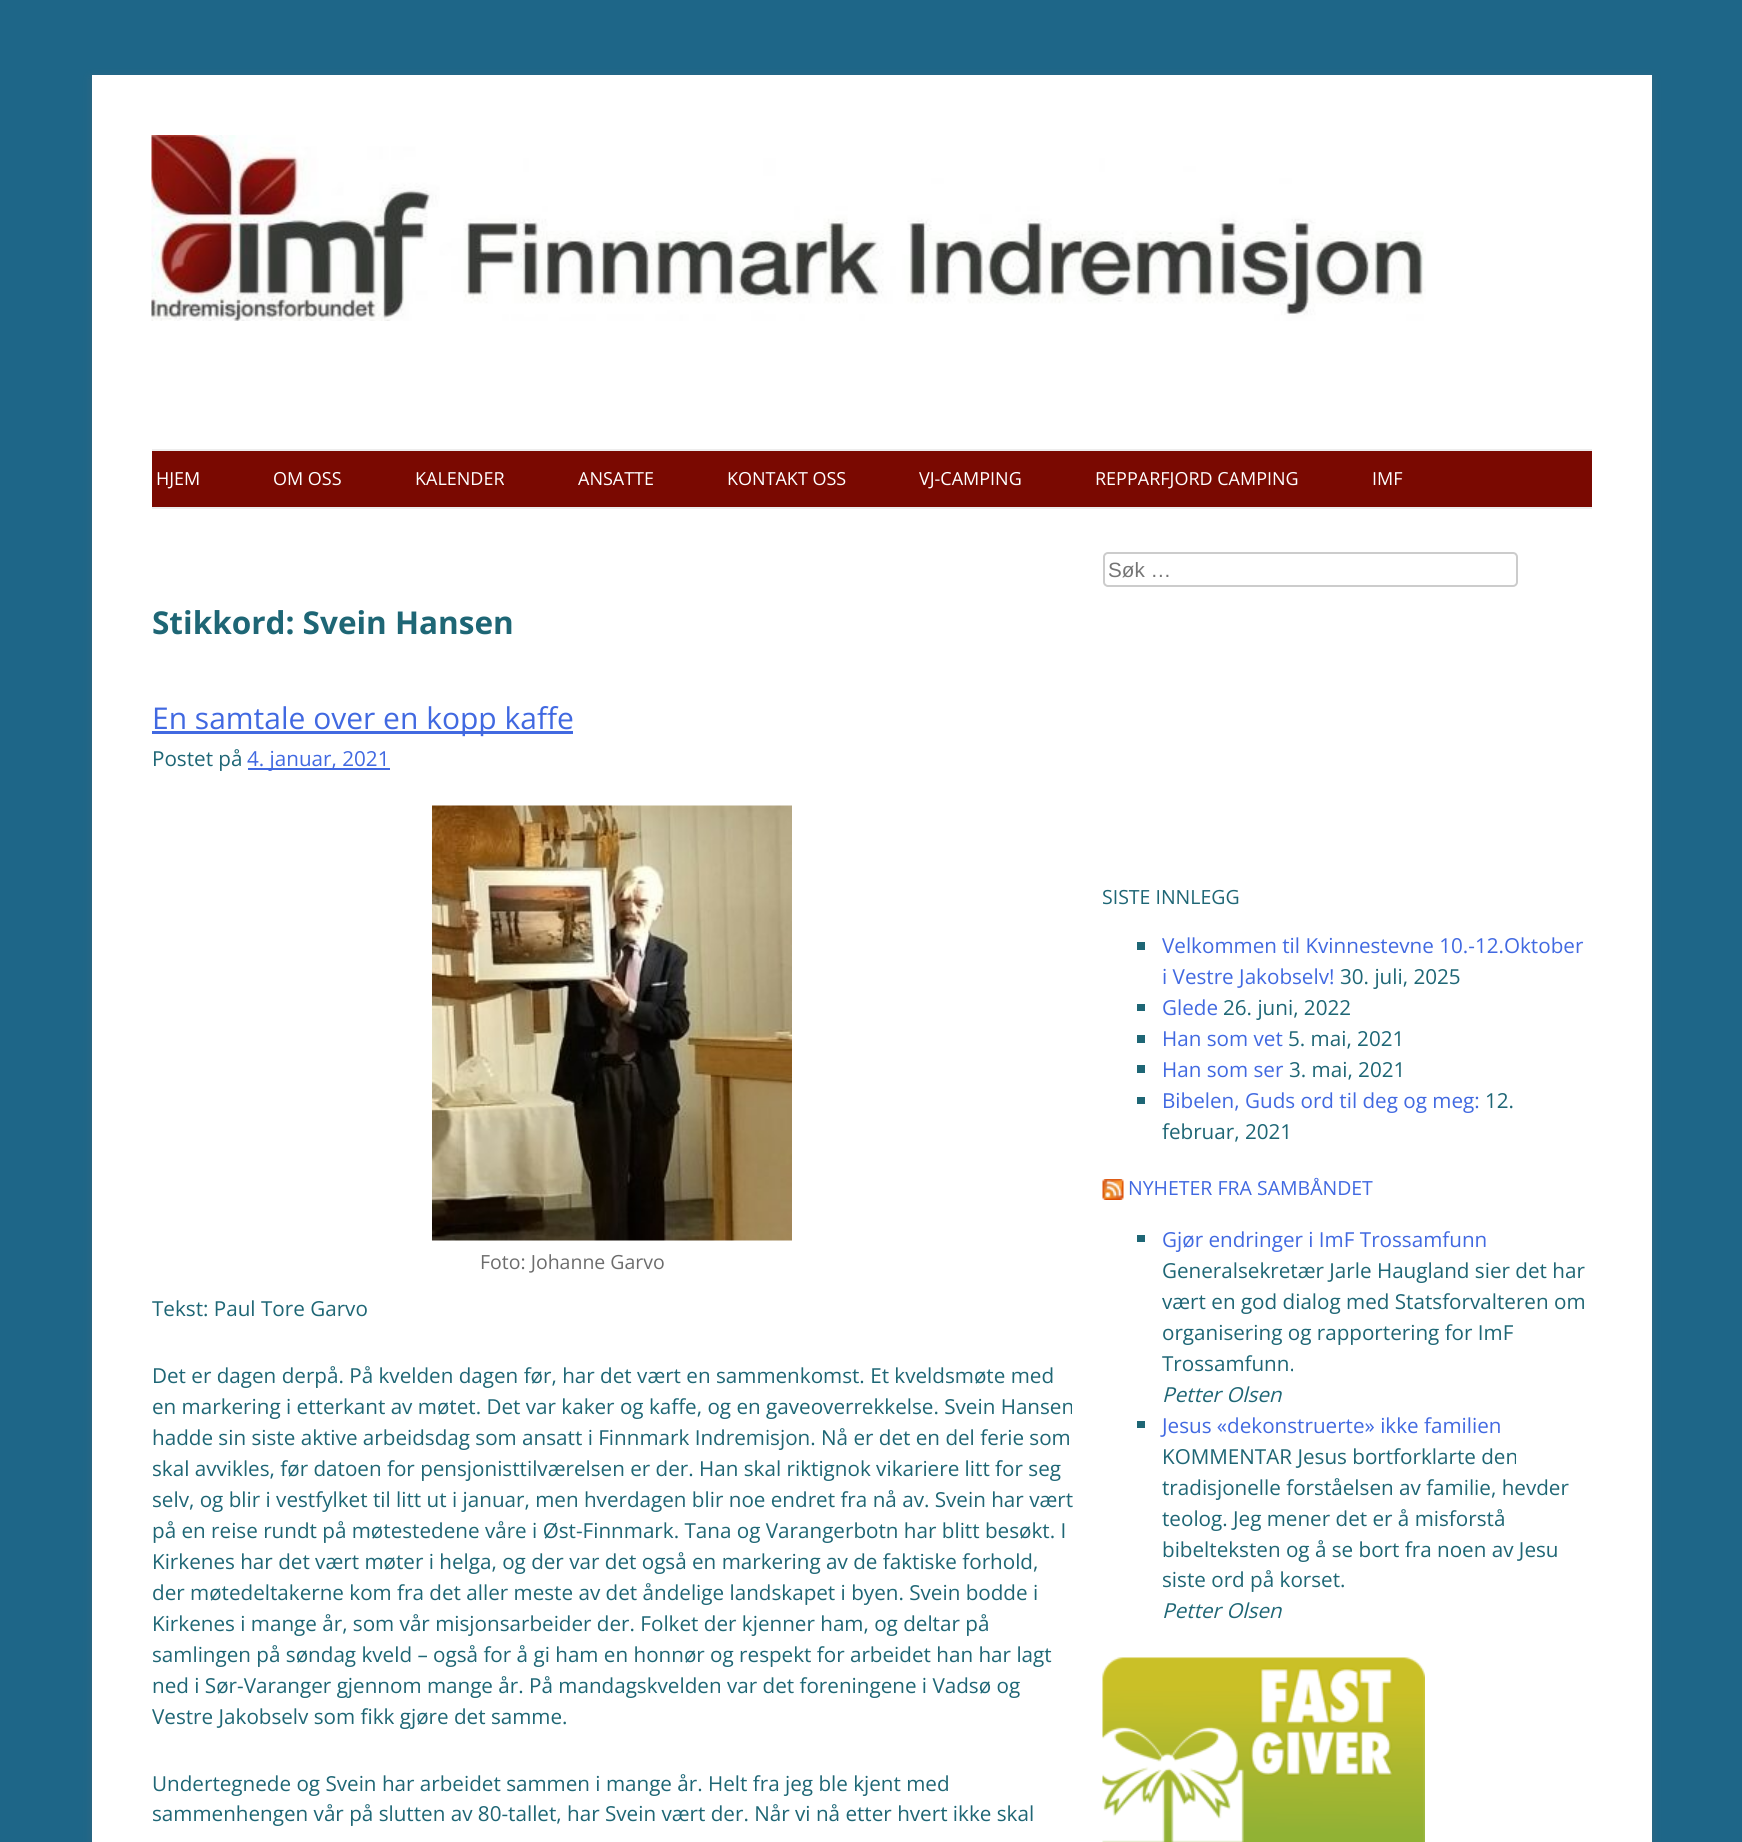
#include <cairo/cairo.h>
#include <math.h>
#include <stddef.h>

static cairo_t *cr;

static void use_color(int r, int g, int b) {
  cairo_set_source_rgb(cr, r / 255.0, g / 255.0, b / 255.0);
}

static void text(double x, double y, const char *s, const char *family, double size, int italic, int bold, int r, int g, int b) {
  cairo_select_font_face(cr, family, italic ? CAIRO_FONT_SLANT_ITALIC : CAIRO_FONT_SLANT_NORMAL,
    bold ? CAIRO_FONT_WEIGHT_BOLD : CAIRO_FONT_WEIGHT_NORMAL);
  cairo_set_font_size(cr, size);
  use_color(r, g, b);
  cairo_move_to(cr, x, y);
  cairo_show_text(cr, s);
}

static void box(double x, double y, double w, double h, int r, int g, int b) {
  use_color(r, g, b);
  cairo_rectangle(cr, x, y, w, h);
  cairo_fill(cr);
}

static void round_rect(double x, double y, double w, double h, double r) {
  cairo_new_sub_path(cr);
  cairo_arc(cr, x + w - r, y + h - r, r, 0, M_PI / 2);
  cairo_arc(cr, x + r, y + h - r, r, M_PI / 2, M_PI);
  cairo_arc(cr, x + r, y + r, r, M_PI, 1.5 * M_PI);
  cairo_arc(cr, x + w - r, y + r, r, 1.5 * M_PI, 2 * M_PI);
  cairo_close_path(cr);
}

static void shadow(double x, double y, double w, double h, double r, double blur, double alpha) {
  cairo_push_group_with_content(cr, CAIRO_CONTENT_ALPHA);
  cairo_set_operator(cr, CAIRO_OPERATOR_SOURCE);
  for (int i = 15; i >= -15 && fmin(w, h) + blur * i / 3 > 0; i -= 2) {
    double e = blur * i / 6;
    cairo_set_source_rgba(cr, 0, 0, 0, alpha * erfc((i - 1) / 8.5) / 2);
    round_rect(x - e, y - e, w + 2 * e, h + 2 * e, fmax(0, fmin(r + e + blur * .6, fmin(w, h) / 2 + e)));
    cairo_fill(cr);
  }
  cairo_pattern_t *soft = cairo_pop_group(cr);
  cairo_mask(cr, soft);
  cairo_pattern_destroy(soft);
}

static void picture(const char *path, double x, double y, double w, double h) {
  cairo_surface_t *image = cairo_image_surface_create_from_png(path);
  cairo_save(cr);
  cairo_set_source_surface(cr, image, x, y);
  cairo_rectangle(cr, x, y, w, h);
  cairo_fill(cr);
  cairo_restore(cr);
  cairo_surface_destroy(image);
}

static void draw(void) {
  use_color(30, 102, 136);
  cairo_paint(cr);
  use_color(100, 100, 100);
  shadow(92, 78, 1560, 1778, 0, 4.5, 0.3);
  box(92, 75, 1560, 1767, 255, 255, 255);
  picture("img_01.png", 151, 135, 1275, 186);
  box(152, 451, 1440, 56, 122, 9, 1);
  box(152, 449, 1440, 2, 237, 237, 237);
  box(152, 507, 1440, 2, 237, 237, 237);
  box(152, 731, 421, 3, 65, 105, 225);
  box(248, 768, 142, 2, 65, 105, 225);
  picture("img_02.png", 432, 805, 360, 436);
  round_rect(1104, 553, 413, 33, 4);
  use_color(204, 204, 204);
  cairo_stroke(cr);
  box(1137, 942, 8, 8, 30, 102, 117);
  box(1137, 1004, 8, 7, 30, 102, 117);
  box(1137, 1035, 8, 8, 30, 102, 117);
  box(1137, 1065, 8, 8, 30, 102, 117);
  box(1137, 1097, 8, 7, 30, 102, 117);
  picture("img_03.png", 1102, 1179, 22, 21);
  box(1137, 1235, 8, 7, 30, 102, 117);
  box(1137, 1421, 8, 7, 30, 102, 117);
  picture("img_04.png", 1102, 1657, 323, 185);
  text(156, 485, "HJEM", "Open Sans", 18, 0, 0, 255, 255, 255);
  text(273, 485, "OM OSS", "Open Sans", 18, 0, 0, 255, 255, 255);
  text(415, 485, "KALENDER", "Open Sans", 18, 0, 0, 255, 255, 255);
  text(578, 485, "ANSATTE", "Open Sans", 18, 0, 0, 255, 255, 255);
  text(727, 485, "KONTAKT OSS", "Open Sans", 18, 0, 0, 255, 255, 255);
  text(919, 485, "VJ-CAMPING", "Open Sans", 18, 0, 0, 255, 255, 255);
  text(1095, 485, "REPPARFJORD CAMPING", "Open Sans", 18, 0, 0, 255, 255, 255);
  text(1372, 485, "IMF", "Open Sans", 18, 0, 0, 255, 255, 255);
  text(152, 634, "Stikkord: Svein Hansen", "Open Sans", 31.5, 0, 1, 30, 102, 117);
  text(152, 729, "En samtale over en kopp kaffe", "Open Sans", 30, 0, 0, 65, 105, 225);
  text(152, 766, "Postet på", "Open Sans", 20.65, 0, 0, 30, 102, 117);
  text(247, 766, "4. januar, 2021", "Open Sans", 20.65, 0, 0, 65, 105, 225);
  text(480, 1269, "Foto: Johanne Garvo", "Open Sans", 19.5, 0, 0, 109, 109, 109);
  text(152, 1316, "Tekst: Paul Tore Garvo", "Open Sans", 20.65, 0, 0, 30, 102, 117);
  text(152, 1383, "Det er dagen derpå. På kvelden dagen før, har det vært en sammenkomst. Et kveldsmøte med", "Open Sans", 20.65, 0, 0, 30, 102, 117);
  text(152, 1414, "en markering i etterkant av møtet. Det var kaker og kaffe, og en gaveoverrekkelse. Svein Hansen", "Open Sans", 20.65, 0, 0, 30, 102, 117);
  text(152, 1445, "hadde sin siste aktive arbeidsdag som ansatt i Finnmark Indremisjon. Nå er det en del ferie som", "Open Sans", 20.65, 0, 0, 30, 102, 117);
  text(152, 1476, "skal avvikles, før datoen for pensjonisttilværelsen er der. Han skal riktignok vikariere litt for seg", "Open Sans", 20.65, 0, 0, 30, 102, 117);
  text(152, 1507, "selv, og blir i vestfylket til litt ut i januar, men hverdagen blir noe endret fra nå av. Svein har vært", "Open Sans", 20.65, 0, 0, 30, 102, 117);
  text(152, 1538, "på en reise rundt på møtestedene våre i Øst-Finnmark. Tana og Varangerbotn har blitt besøkt. I", "Open Sans", 20.65, 0, 0, 30, 102, 117);
  text(152, 1569, "Kirkenes har det vært møter i helga, og der var det også en markering av de faktiske forhold,", "Open Sans", 20.65, 0, 0, 30, 102, 117);
  text(152, 1600, "der møtedeltakerne kom fra det aller meste av det åndelige landskapet i byen. Svein bodde i", "Open Sans", 20.65, 0, 0, 30, 102, 117);
  text(152, 1631, "Kirkenes i mange år, som vår misjonsarbeider der. Folket der kjenner ham, og deltar på", "Open Sans", 20.65, 0, 0, 30, 102, 117);
  text(152, 1662, "samlingen på søndag kveld – også for å gi ham en honnør og respekt for arbeidet han har lagt", "Open Sans", 20.65, 0, 0, 30, 102, 117);
  text(152, 1693, "ned i Sør-Varanger gjennom mange år. På mandagskvelden var det foreningene i Vadsø og", "Open Sans", 20.65, 0, 0, 30, 102, 117);
  text(152, 1724, "Vestre Jakobselv som fikk gjøre det samme.", "Open Sans", 20.65, 0, 0, 30, 102, 117);
  text(152, 1791, "Undertegnede og Svein har arbeidet sammen i mange år. Helt fra jeg ble kjent med", "Open Sans", 20.65, 0, 0, 30, 102, 117);
  text(152, 1821, "sammenhengen vår på slutten av 80-tallet, har Svein vært der. Når vi nå etter hvert ikke skal", "Open Sans", 20.65, 0, 0, 30, 102, 117);
  text(1108, 577, "Søk …", "Liberation Sans", 20.65, 0, 0, 117, 117, 117);
  text(1102, 904, "SISTE INNLEGG", "Open Sans", 19.5, 0, 0, 30, 102, 117);
  text(1162, 953, "Velkommen til Kvinnestevne 10.-12.Oktober", "Open Sans", 20.65, 0, 0, 65, 105, 225);
  text(1162, 984, "i Vestre Jakobselv!", "Open Sans", 20.65, 0, 0, 65, 105, 225);
  text(1340, 984, "30. juli, 2025", "Open Sans", 20.65, 0, 0, 30, 102, 117);
  text(1162, 1015, "Glede", "Open Sans", 20.65, 0, 0, 65, 105, 225);
  text(1223, 1015, "26. juni, 2022", "Open Sans", 20.65, 0, 0, 30, 102, 117);
  text(1162, 1046, "Han som vet", "Open Sans", 20.65, 0, 0, 65, 105, 225);
  text(1288, 1046, "5. mai, 2021", "Open Sans", 20.65, 0, 0, 30, 102, 117);
  text(1162, 1077, "Han som ser", "Open Sans", 20.65, 0, 0, 65, 105, 225);
  text(1289, 1077, "3. mai, 2021", "Open Sans", 20.65, 0, 0, 30, 102, 117);
  text(1162, 1108, "Bibelen, Guds ord til deg og meg:", "Open Sans", 20.65, 0, 0, 65, 105, 225);
  text(1485, 1108, "12.", "Open Sans", 20.65, 0, 0, 30, 102, 117);
  text(1162, 1139, "februar, 2021", "Open Sans", 20.65, 0, 0, 30, 102, 117);
  text(1128, 1195, "NYHETER FRA SAMBÅNDET", "Open Sans", 19.5, 0, 0, 65, 105, 225);
  text(1162, 1247, "Gjør endringer i ImF Trossamfunn", "Open Sans", 20.65, 0, 0, 65, 105, 225);
  text(1162, 1278, "Generalsekretær Jarle Haugland sier det har", "Open Sans", 20.65, 0, 0, 30, 102, 117);
  text(1162, 1309, "vært en god dialog med Statsforvalteren om", "Open Sans", 20.65, 0, 0, 30, 102, 117);
  text(1162, 1340, "organisering og rapportering for ImF", "Open Sans", 20.65, 0, 0, 30, 102, 117);
  text(1162, 1371, "Trossamfunn.", "Open Sans", 20.65, 0, 0, 30, 102, 117);
  text(1162, 1402, "Petter Olsen", "Open Sans", 20.65, 1, 0, 30, 102, 117);
  text(1162, 1433, "Jesus «dekonstruerte» ikke familien", "Open Sans", 20.65, 0, 0, 65, 105, 225);
  text(1162, 1464, "KOMMENTAR Jesus bortforklarte den", "Open Sans", 20.65, 0, 0, 30, 102, 117);
  text(1162, 1495, "tradisjonelle forståelsen av familie, hevder", "Open Sans", 20.65, 0, 0, 30, 102, 117);
  text(1162, 1526, "teolog. Jeg mener det er å misforstå", "Open Sans", 20.65, 0, 0, 30, 102, 117);
  text(1162, 1557, "bibelteksten og å se bort fra noen av Jesu", "Open Sans", 20.65, 0, 0, 30, 102, 117);
  text(1162, 1587, "siste ord på korset.", "Open Sans", 20.65, 0, 0, 30, 102, 117);
  text(1162, 1618, "Petter Olsen", "Open Sans", 20.65, 1, 0, 30, 102, 117);
}

int main(void) {
  cairo_surface_t *surface = cairo_image_surface_create(CAIRO_FORMAT_RGB24, 1742, 1842);
  cr = cairo_create(surface);
  cairo_font_options_t *options = cairo_font_options_create();
  cairo_font_options_set_hint_metrics(options, CAIRO_HINT_METRICS_OFF);
  cairo_font_options_set_hint_style(options, CAIRO_HINT_STYLE_NONE);
  cairo_set_font_options(cr, options);
  cairo_set_miter_limit(cr, 4);
  draw();
  cairo_surface_write_to_png(surface, "out.png");
  cairo_font_options_destroy(options);
  cairo_destroy(cr);
  cairo_surface_destroy(surface);
  return 0;
}
